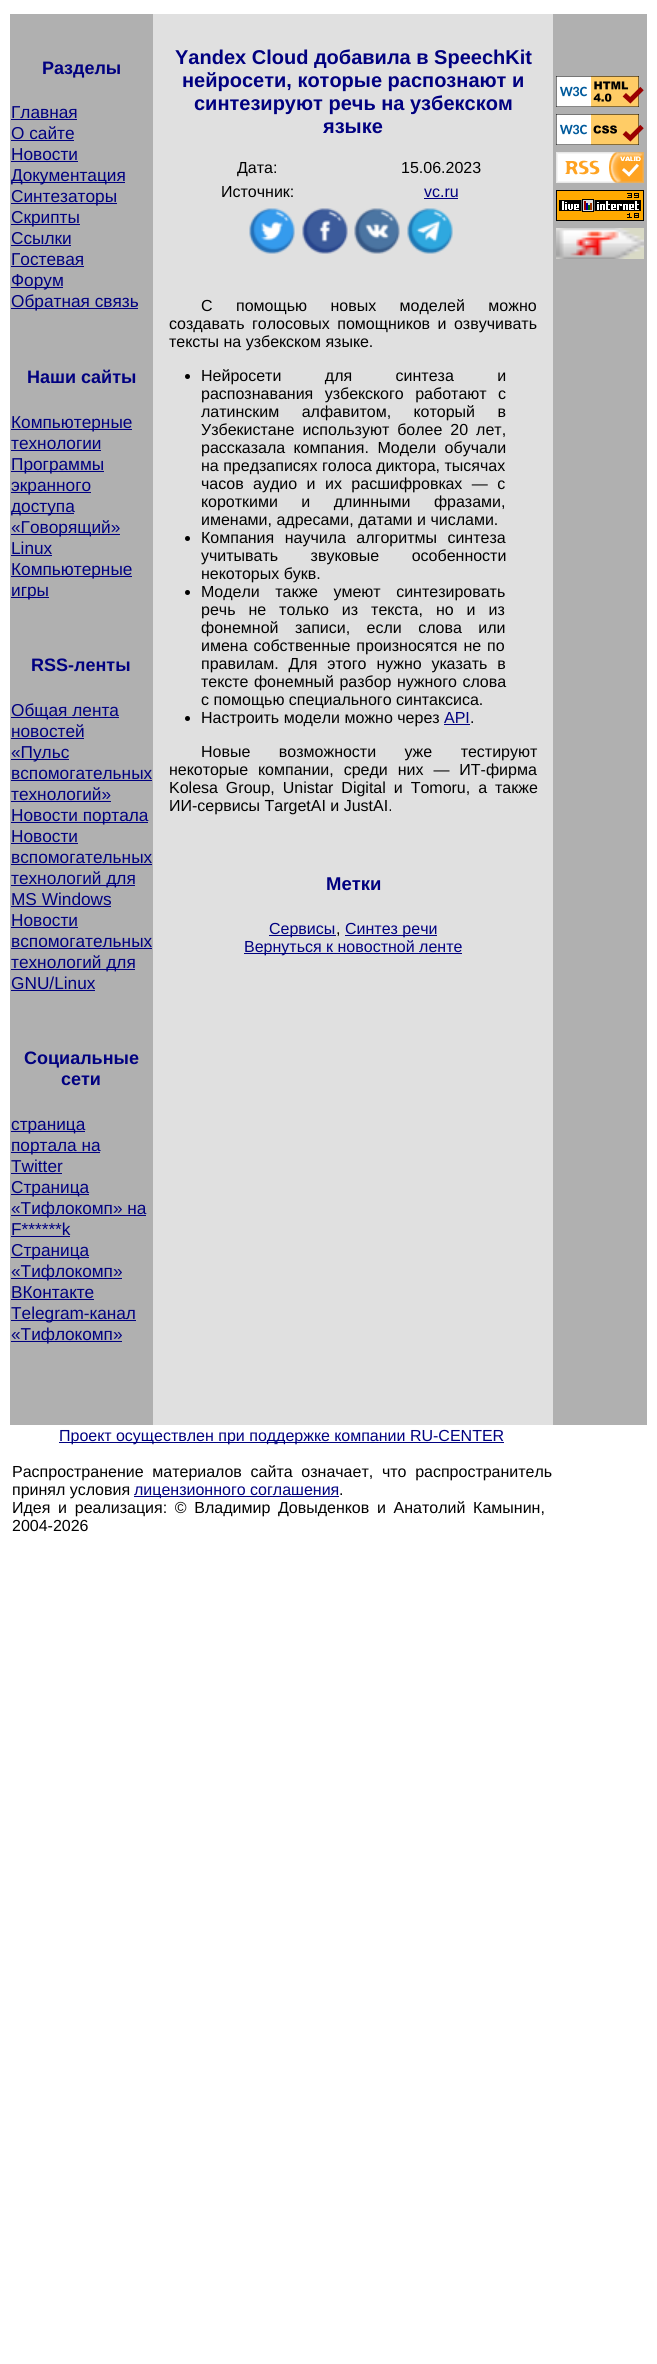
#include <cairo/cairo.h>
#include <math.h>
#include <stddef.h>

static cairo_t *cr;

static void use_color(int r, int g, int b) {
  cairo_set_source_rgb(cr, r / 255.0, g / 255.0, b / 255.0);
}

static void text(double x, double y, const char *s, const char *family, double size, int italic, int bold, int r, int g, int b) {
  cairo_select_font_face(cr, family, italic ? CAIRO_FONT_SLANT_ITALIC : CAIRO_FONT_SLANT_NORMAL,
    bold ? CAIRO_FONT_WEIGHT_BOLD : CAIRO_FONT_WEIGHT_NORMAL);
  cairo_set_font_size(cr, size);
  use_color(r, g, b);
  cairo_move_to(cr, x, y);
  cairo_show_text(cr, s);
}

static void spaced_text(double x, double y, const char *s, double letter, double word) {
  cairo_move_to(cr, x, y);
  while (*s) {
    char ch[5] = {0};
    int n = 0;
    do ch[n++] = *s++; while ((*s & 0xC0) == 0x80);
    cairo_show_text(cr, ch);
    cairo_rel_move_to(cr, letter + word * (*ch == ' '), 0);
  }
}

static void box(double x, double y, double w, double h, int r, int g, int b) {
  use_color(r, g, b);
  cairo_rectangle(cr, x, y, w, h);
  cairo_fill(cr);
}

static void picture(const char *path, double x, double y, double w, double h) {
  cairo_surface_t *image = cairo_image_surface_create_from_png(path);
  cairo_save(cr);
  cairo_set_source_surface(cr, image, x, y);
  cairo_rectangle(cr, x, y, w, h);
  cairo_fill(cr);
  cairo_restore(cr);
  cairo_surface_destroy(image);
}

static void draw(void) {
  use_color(255, 255, 255);
  cairo_paint(cr);
  box(10, 14, 143, 1411, 176, 176, 176);
  box(11, 119, 66, 1, 0, 0, 128);
  box(11, 140, 63, 1, 0, 0, 128);
  box(11, 161, 67, 1, 0, 0, 128);
  box(11, 182, 114, 1, 0, 0, 128);
  box(11, 203, 106, 1, 0, 0, 128);
  box(11, 224, 69, 1, 0, 0, 128);
  box(11, 245, 60, 1, 0, 0, 128);
  box(11, 266, 73, 1, 0, 0, 128);
  box(11, 287, 52, 1, 0, 0, 128);
  box(11, 308, 127, 1, 0, 0, 128);
  box(11, 429, 121, 1, 0, 0, 128);
  box(11, 450, 90, 1, 0, 0, 128);
  box(11, 471, 93, 1, 0, 0, 128);
  box(11, 492, 80, 1, 0, 0, 128);
  box(11, 513, 63, 1, 0, 0, 128);
  box(11, 534, 109, 1, 0, 0, 128);
  box(11, 555, 41, 1, 0, 0, 128);
  box(11, 576, 121, 1, 0, 0, 128);
  box(11, 597, 38, 1, 0, 0, 128);
  box(11, 717, 108, 1, 0, 0, 128);
  box(11, 738, 73, 1, 0, 0, 128);
  box(11, 759, 58, 1, 0, 0, 128);
  box(11, 780, 141, 1, 0, 0, 128);
  box(11, 801, 100, 1, 0, 0, 128);
  box(11, 822, 137, 1, 0, 0, 128);
  box(11, 843, 67, 1, 0, 0, 128);
  box(11, 864, 141, 1, 0, 0, 128);
  box(11, 885, 124, 1, 0, 0, 128);
  box(11, 906, 100, 1, 0, 0, 128);
  box(11, 927, 67, 1, 0, 0, 128);
  box(11, 948, 141, 1, 0, 0, 128);
  box(11, 969, 124, 1, 0, 0, 128);
  box(11, 990, 84, 1, 0, 0, 128);
  box(11, 1131, 74, 1, 0, 0, 128);
  box(11, 1152, 89, 1, 0, 0, 128);
  box(11, 1173, 51, 1, 0, 0, 128);
  box(11, 1194, 78, 1, 0, 0, 128);
  box(11, 1215, 135, 1, 0, 0, 128);
  box(11, 1236, 59, 1, 0, 0, 128);
  box(11, 1257, 78, 1, 0, 0, 128);
  box(11, 1278, 111, 1, 0, 0, 128);
  box(11, 1299, 83, 1, 0, 0, 128);
  box(11, 1320, 125, 1, 0, 0, 128);
  box(11, 1341, 111, 1, 0, 0, 128);
  box(153, 14, 400, 1411, 224, 224, 224);
  box(424, 198, 34, 1, 0, 0, 128);
  picture("img_01.png", 249, 208, 46, 46);
  picture("img_02.png", 302, 208, 46, 46);
  picture("img_03.png", 354, 208, 46, 46);
  picture("img_04.png", 407, 208, 46, 46);
  use_color(0, 0, 0);
  cairo_arc(cr, 187.5, 376.5, 2.5, 0, 2 * M_PI);
  cairo_fill(cr);
  cairo_arc(cr, 187.5, 538.5, 2.5, 0, 2 * M_PI);
  cairo_fill(cr);
  cairo_arc(cr, 187.5, 592.5, 2.5, 0, 2 * M_PI);
  cairo_fill(cr);
  cairo_arc(cr, 187.5, 718.5, 2.5, 0, 2 * M_PI);
  cairo_fill(cr);
  box(444, 724, 26, 1, 0, 0, 128);
  box(269, 935, 67, 1, 0, 0, 128);
  box(345, 935, 92, 1, 0, 0, 128);
  box(244, 953, 218, 1, 0, 0, 128);
  box(553, 14, 94, 1411, 176, 176, 176);
  picture("img_05.png", 556, 76, 88, 31);
  picture("img_06.png", 556, 114, 88, 31);
  picture("img_07.png", 556, 152, 88, 31);
  picture("img_08.png", 556, 190, 88, 31);
  picture("img_09.png", 556, 228, 88, 31);
  box(59, 1442, 445, 1, 0, 0, 128);
  box(134, 1496, 205, 1, 0, 0, 128);
  text(42, 74, "Разделы", "Liberation Sans", 18, 0, 1, 0, 0, 128);
  text(11, 118, "Главная", "Liberation Sans", 17.25, 0, 0, 0, 0, 128);
  text(11, 139, "О сайте", "Liberation Sans", 17.25, 0, 0, 0, 0, 128);
  text(11, 160, "Новости", "Liberation Sans", 17.25, 0, 0, 0, 0, 128);
  text(11, 181, "Документация", "Liberation Sans", 17.25, 0, 0, 0, 0, 128);
  text(11, 202, "Синтезаторы", "Liberation Sans", 17.25, 0, 0, 0, 0, 128);
  text(11, 223, "Скрипты", "Liberation Sans", 17.25, 0, 0, 0, 0, 128);
  text(11, 244, "Ссылки", "Liberation Sans", 17.25, 0, 0, 0, 0, 128);
  text(11, 265, "Гостевая", "Liberation Sans", 17.25, 0, 0, 0, 0, 128);
  text(11, 286, "Форум", "Liberation Sans", 17.25, 0, 0, 0, 0, 128);
  text(11, 307, "Обратная связь", "Liberation Sans", 17.25, 0, 0, 0, 0, 128);
  text(27, 383, "Наши сайты", "Liberation Sans", 18, 0, 1, 0, 0, 128);
  text(11, 428, "Компьютерные", "Liberation Sans", 17.25, 0, 0, 0, 0, 128);
  text(11, 449, "технологии", "Liberation Sans", 17.25, 0, 0, 0, 0, 128);
  text(11, 470, "Программы", "Liberation Sans", 17.25, 0, 0, 0, 0, 128);
  text(11, 491, "экранного", "Liberation Sans", 17.25, 0, 0, 0, 0, 128);
  text(11, 512, "доступа", "Liberation Sans", 17.25, 0, 0, 0, 0, 128);
  text(11, 533, "«Говорящий»", "Liberation Sans", 17.25, 0, 0, 0, 0, 128);
  text(11, 554, "Linux", "Liberation Sans", 17.25, 0, 0, 0, 0, 128);
  text(11, 575, "Компьютерные", "Liberation Sans", 17.25, 0, 0, 0, 0, 128);
  text(11, 596, "игры", "Liberation Sans", 17.25, 0, 0, 0, 0, 128);
  text(31, 671, "RSS-ленты", "Liberation Sans", 18, 0, 1, 0, 0, 128);
  text(11, 716, "Общая лента", "Liberation Sans", 17.25, 0, 0, 0, 0, 128);
  text(11, 737, "новостей", "Liberation Sans", 17.25, 0, 0, 0, 0, 128);
  text(11, 758, "«Пульс", "Liberation Sans", 17.25, 0, 0, 0, 0, 128);
  text(11, 779, "вспомогательных", "Liberation Sans", 17.25, 0, 0, 0, 0, 128);
  text(11, 800, "технологий»", "Liberation Sans", 17.25, 0, 0, 0, 0, 128);
  text(11, 821, "Новости портала", "Liberation Sans", 17.25, 0, 0, 0, 0, 128);
  text(11, 842, "Новости", "Liberation Sans", 17.25, 0, 0, 0, 0, 128);
  text(11, 863, "вспомогательных", "Liberation Sans", 17.25, 0, 0, 0, 0, 128);
  text(11, 884, "технологий для", "Liberation Sans", 17.25, 0, 0, 0, 0, 128);
  text(11, 905, "MS Windows", "Liberation Sans", 17.25, 0, 0, 0, 0, 128);
  text(11, 926, "Новости", "Liberation Sans", 17.25, 0, 0, 0, 0, 128);
  text(11, 947, "вспомогательных", "Liberation Sans", 17.25, 0, 0, 0, 0, 128);
  text(11, 968, "технологий для", "Liberation Sans", 17.25, 0, 0, 0, 0, 128);
  text(11, 989, "GNU/Linux", "Liberation Sans", 17.25, 0, 0, 0, 0, 128);
  text(24, 1064, "Социальные", "Liberation Sans", 18, 0, 1, 0, 0, 128);
  text(61, 1085, "сети", "Liberation Sans", 18, 0, 1, 0, 0, 128);
  text(11, 1130, "страница", "Liberation Sans", 17.25, 0, 0, 0, 0, 128);
  text(11, 1151, "портала на", "Liberation Sans", 17.25, 0, 0, 0, 0, 128);
  text(11, 1172, "Twitter", "Liberation Sans", 17.25, 0, 0, 0, 0, 128);
  text(11, 1193, "Страница", "Liberation Sans", 17.25, 0, 0, 0, 0, 128);
  text(11, 1214, "«Тифлокомп» на", "Liberation Sans", 17.25, 0, 0, 0, 0, 128);
  text(11, 1235, "F******k", "Liberation Sans", 17.25, 0, 0, 0, 0, 128);
  text(11, 1256, "Страница", "Liberation Sans", 17.25, 0, 0, 0, 0, 128);
  text(11, 1277, "«Тифлокомп»", "Liberation Sans", 17.25, 0, 0, 0, 0, 128);
  text(11, 1298, "ВКонтакте", "Liberation Sans", 17.25, 0, 0, 0, 0, 128);
  text(11, 1319, "Telegram-канал", "Liberation Sans", 17.25, 0, 0, 0, 0, 128);
  text(11, 1340, "«Тифлокомп»", "Liberation Sans", 17.25, 0, 0, 0, 0, 128);
  text(175, 64, "Yandex Cloud добавила в SpeechKit", "Liberation Sans", 20, 0, 1, 0, 0, 128);
  text(182, 87, "нейросети, которые распознают и", "Liberation Sans", 20, 0, 1, 0, 0, 128);
  text(194, 110, "синтезируют речь на узбекском", "Liberation Sans", 20, 0, 1, 0, 0, 128);
  text(323, 133, "языке", "Liberation Sans", 20, 0, 1, 0, 0, 128);
  text(237, 173, "Дата:", "Liberation Sans", 16, 0, 0, 0, 0, 0);
  text(401, 173, "15.06.2023", "Liberation Sans", 16, 0, 0, 0, 0, 0);
  text(221, 197, "Источник:", "Liberation Sans", 16, 0, 0, 0, 0, 0);
  text(424, 197, "vc.ru", "Liberation Sans", 16, 0, 0, 0, 0, 128);
  use_color(0, 0, 0);
  spaced_text(201, 311, "С помощью новых моделей можно", 0, 19);
  spaced_text(169, 329, "создавать голосовых помощников и озвучивать", 0, 3);
  text(169, 347, "тексты на узбекском языке.", "Liberation Sans", 16, 0, 0, 0, 0, 0);
  spaced_text(201, 381, "Нейросети для синтеза и", 0, 39);
  spaced_text(201, 399, "распознавания узбекского работают с", 0, 7);
  spaced_text(201, 417, "латинским алфавитом, который в", 0, 18);
  spaced_text(201, 435, "Узбекистане используют более 20 лет,", 0, 3.5);
  spaced_text(201, 453, "рассказала компания. Модели обучали", 0, 4);
  text(201, 471, "на предзаписях голоса диктора, тысячах", "Liberation Sans", 16, 0, 0, 0, 0, 0);
  spaced_text(201, 489, "часов аудио и их расшифровках — с", 0, 5);
  spaced_text(201, 507, "короткими и длинными фразами,", 0, 19);
  text(201, 525, "именами, адресами, датами и числами.", "Liberation Sans", 16, 0, 0, 0, 0, 0);
  spaced_text(201, 543, "Компания научила алгоритмы синтеза", 0, 6);
  spaced_text(201, 561, "учитывать звуковые особенности", 0, 28);
  text(201, 579, "некоторых букв.", "Liberation Sans", 16, 0, 0, 0, 0, 0);
  spaced_text(201, 597, "Модели также умеют синтезировать", 0, 11);
  spaced_text(201, 615, "речь не только из текста, но и из", 0, 8.5);
  spaced_text(201, 633, "фонемной записи, если слова или", 0, 12);
  spaced_text(201, 651, "имена собственные произносятся не по", 0, 1.5);
  spaced_text(201, 669, "правилам. Для этого нужно указать в", 0, 5.5);
  spaced_text(201, 687, "тексте фонемный разбор нужного слова", 0, 1);
  text(201, 705, "с помощью специального синтаксиса.", "Liberation Sans", 16, 0, 0, 0, 0, 0);
  text(201, 723, "Настроить модели можно через", "Liberation Sans", 16, 0, 0, 0, 0, 0);
  text(444, 723, "API", "Liberation Sans", 16, 0, 0, 0, 0, 128);
  text(470, 723, ".", "Liberation Sans", 16, 0, 0, 0, 0, 0);
  spaced_text(201, 757, "Новые возможности уже тестируют", 0, 24);
  spaced_text(169, 775, "некоторые компании, среди них — ИТ-фирма", 0, 5.5);
  spaced_text(169, 793, "Kolesa Group, Unistar Digital и Tomoru, а также", 0, 3.5);
  text(169, 811, "ИИ-сервисы TargetAI и JustAI.", "Liberation Sans", 16, 0, 0, 0, 0, 0);
  text(326, 890, "Метки", "Liberation Sans", 18.5, 0, 1, 0, 0, 128);
  text(269, 934, "Сервисы", "Liberation Sans", 16, 0, 0, 0, 0, 128);
  text(336, 934, ",", "Liberation Sans", 16, 0, 0, 0, 0, 0);
  text(345, 934, "Синтез речи", "Liberation Sans", 16, 0, 0, 0, 0, 128);
  text(244, 952, "Вернуться к новостной ленте", "Liberation Sans", 16, 0, 0, 0, 0, 128);
  text(59, 1441, "Проект осуществлен при поддержке компании RU-CENTER", "Liberation Sans", 16, 0, 0, 0, 0, 128);
  use_color(0, 0, 0);
  spaced_text(12, 1477, "Распространение материалов сайта означает, что распространитель", 0, 4.25);
  text(12, 1495, "принял условия", "Liberation Sans", 16, 0, 0, 0, 0, 0);
  text(134, 1495, "лицензионного соглашения", "Liberation Sans", 16, 0, 0, 0, 0, 128);
  text(339, 1495, ".", "Liberation Sans", 16, 0, 0, 0, 0, 0);
  spaced_text(12, 1513, "Идея и реализация: © Владимир Довыденков и Анатолий Камынин,", 0, 3.25);
  text(12, 1531, "2004-2026", "Liberation Sans", 16, 0, 0, 0, 0, 0);
}

int main(void) {
  cairo_surface_t *surface = cairo_image_surface_create(CAIRO_FORMAT_RGB24, 657, 2364);
  cr = cairo_create(surface);
  cairo_font_options_t *options = cairo_font_options_create();
  cairo_font_options_set_hint_metrics(options, CAIRO_HINT_METRICS_OFF);
  cairo_font_options_set_hint_style(options, CAIRO_HINT_STYLE_NONE);
  cairo_set_font_options(cr, options);
  cairo_set_miter_limit(cr, 4);
  draw();
  cairo_surface_write_to_png(surface, "out.png");
  cairo_font_options_destroy(options);
  cairo_destroy(cr);
  cairo_surface_destroy(surface);
  return 0;
}
